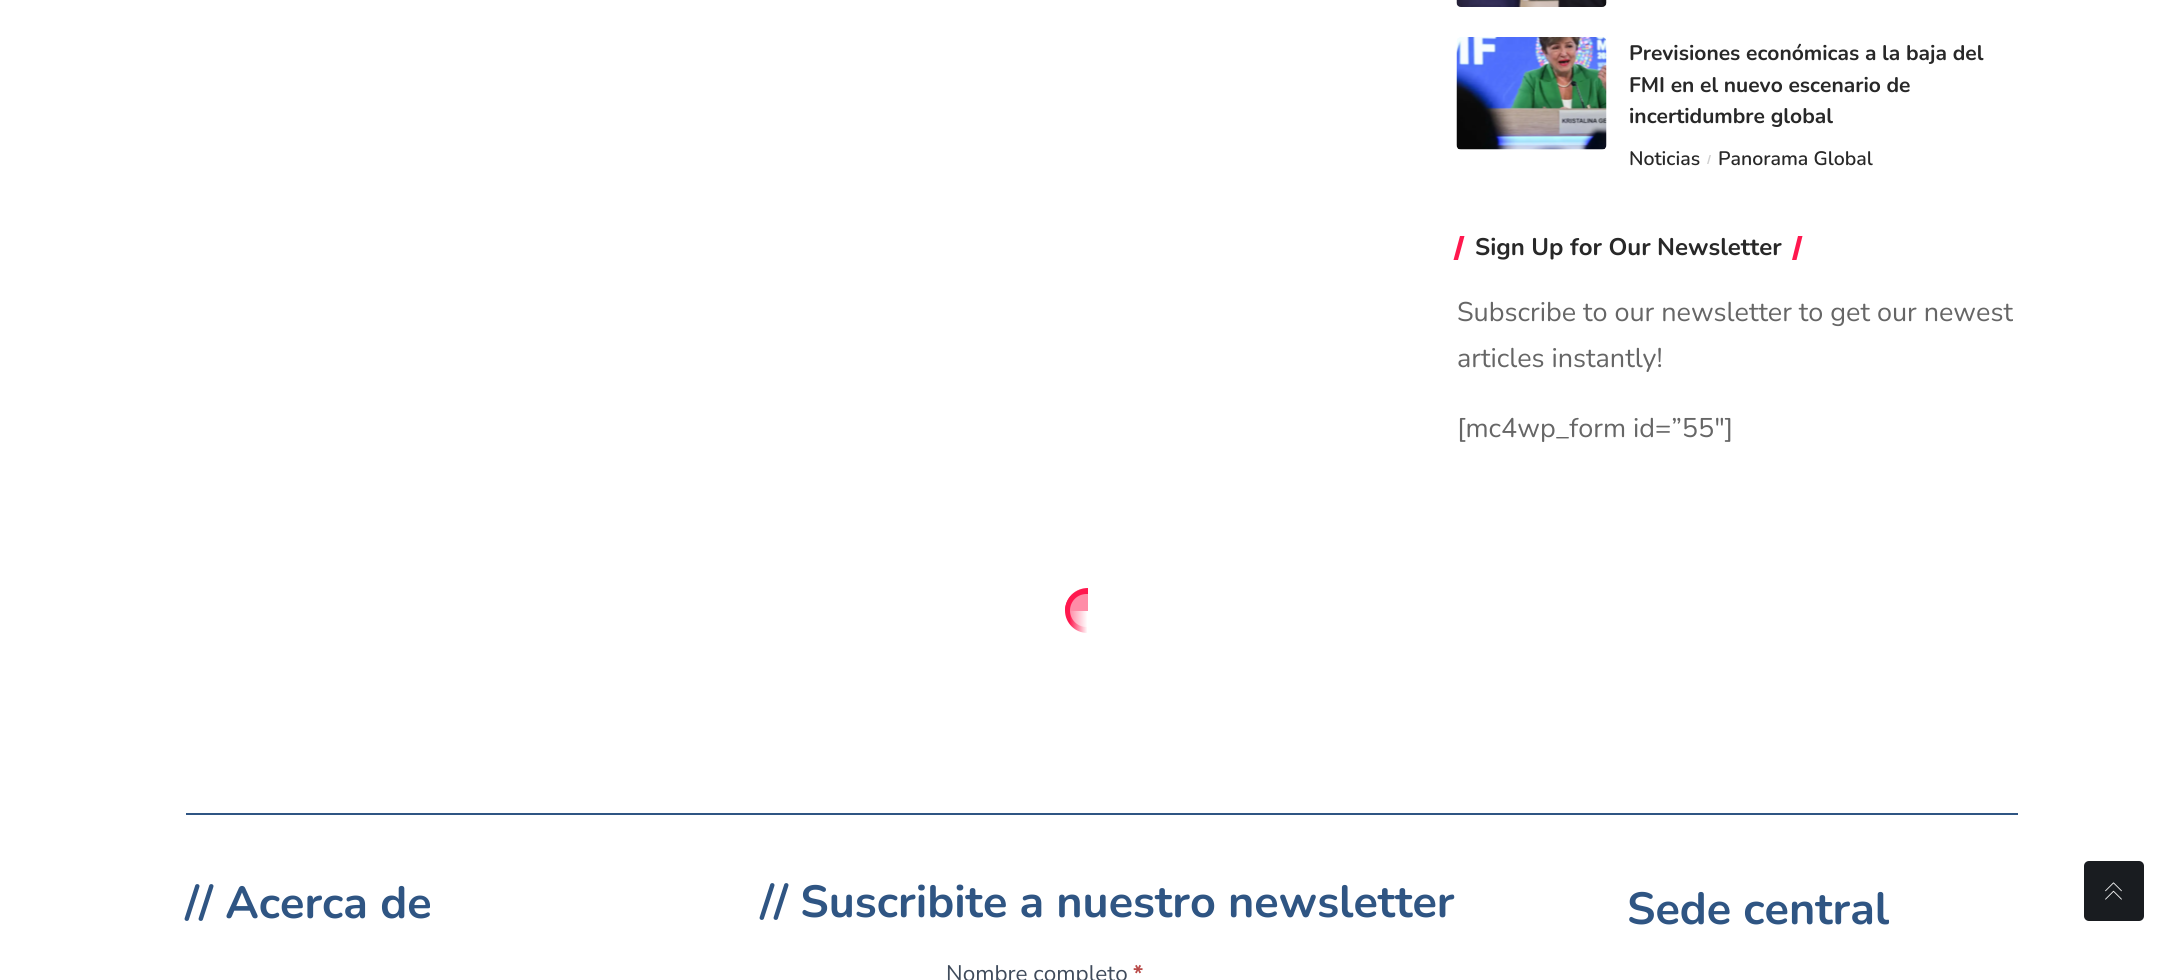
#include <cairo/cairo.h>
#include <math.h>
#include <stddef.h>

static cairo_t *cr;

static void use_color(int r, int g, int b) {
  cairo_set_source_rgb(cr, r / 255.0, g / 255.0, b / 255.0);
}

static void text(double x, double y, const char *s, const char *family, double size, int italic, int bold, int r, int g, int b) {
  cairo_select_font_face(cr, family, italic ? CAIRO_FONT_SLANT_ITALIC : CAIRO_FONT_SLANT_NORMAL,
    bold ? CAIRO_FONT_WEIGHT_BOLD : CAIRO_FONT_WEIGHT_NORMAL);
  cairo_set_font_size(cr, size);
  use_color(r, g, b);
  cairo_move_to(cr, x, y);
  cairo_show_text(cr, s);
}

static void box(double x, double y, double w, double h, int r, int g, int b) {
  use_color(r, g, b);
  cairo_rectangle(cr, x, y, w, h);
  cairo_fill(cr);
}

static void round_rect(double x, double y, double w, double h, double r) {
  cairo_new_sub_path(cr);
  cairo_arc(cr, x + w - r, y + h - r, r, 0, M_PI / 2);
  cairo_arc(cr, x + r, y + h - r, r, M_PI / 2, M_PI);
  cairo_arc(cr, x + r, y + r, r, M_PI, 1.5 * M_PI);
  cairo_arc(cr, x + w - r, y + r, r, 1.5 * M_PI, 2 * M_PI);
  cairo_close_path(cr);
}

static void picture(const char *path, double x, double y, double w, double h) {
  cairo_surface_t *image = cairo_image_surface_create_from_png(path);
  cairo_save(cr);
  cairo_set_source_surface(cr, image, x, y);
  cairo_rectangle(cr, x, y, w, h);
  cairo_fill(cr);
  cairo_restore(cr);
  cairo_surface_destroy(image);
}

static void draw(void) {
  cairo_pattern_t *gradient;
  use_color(255, 255, 255);
  cairo_paint(cr);
  picture("img_01.png", 1456, 0, 151, 7);
  picture("img_02.png", 1456, 37, 151, 113);
  use_color(209, 209, 209);
  cairo_new_path(cr);
  cairo_move_to(cr, 1709.5, 155);
  cairo_line_to(cr, 1711, 155);
  cairo_line_to(cr, 1708.5, 164);
  cairo_line_to(cr, 1707, 164);
  cairo_close_path(cr);
  cairo_fill(cr);
  use_color(255, 24, 78);
  cairo_new_path(cr);
  cairo_move_to(cr, 1798, 236);
  cairo_line_to(cr, 1802.5, 236);
  cairo_line_to(cr, 1796.5, 260);
  cairo_line_to(cr, 1792, 260);
  cairo_close_path(cr);
  cairo_fill(cr);
  cairo_new_path(cr);
  cairo_move_to(cr, 1460, 236);
  cairo_line_to(cr, 1464.5, 236);
  cairo_line_to(cr, 1458, 260);
  cairo_line_to(cr, 1453.5, 260);
  cairo_close_path(cr);
  cairo_fill(cr);
  gradient = cairo_pattern_create_linear(1065, 611, 1110, 611);
  cairo_pattern_add_color_stop_rgba(gradient, 0.1, 1, 0.094, 0.306, 1);
  cairo_pattern_add_color_stop_rgba(gradient, 0.5, 1, 1, 1, 1);
  cairo_set_source(cr, gradient);
  cairo_pattern_destroy(gradient);
  cairo_arc(cr, 1087.5, 610.5, 22.5, 0, 2 * M_PI);
  cairo_fill(cr);
  cairo_save(cr);
  round_rect(1065, 588, 45, 45, 22.5);
  cairo_clip(cr);
  use_color(255, 24, 78);
  cairo_new_path(cr);
  cairo_move_to(cr, 1088, 588);
  cairo_line_to(cr, 1088, 611);
  cairo_line_to(cr, 1065, 611);
  cairo_curve_to(cr, 1065, 598.5, 1075.5, 588, 1088, 588);
  cairo_close_path(cr);
  cairo_fill(cr);
  cairo_restore(cr);
  cairo_set_source_rgba(cr, 1, 1, 1, 0.5);
  round_rect(1070, 594, 34, 33, 16.5);
  cairo_fill(cr);
  box(186, 813, 1832, 2, 47, 85, 131);
  use_color(25, 28, 32);
  round_rect(2084, 861, 60, 60, 5);
  cairo_fill(cr);
  picture("img_03.png", 2105, 882, 17, 18);
  text(1629, 60, "Previsiones económicas a la baja del", "Nunito", 21, 0, 1, 40, 40, 40);
  text(1629, 92, "FMI en el nuevo escenario de", "Nunito", 21, 0, 1, 40, 40, 40);
  text(1629, 123, "incertidumbre global", "Nunito", 21, 0, 1, 40, 40, 40);
  text(1629, 165, "Noticias", "Nunito SemiBold", 19.5, 0, 0, 40, 40, 40);
  text(1718, 165, "Panorama Global", "Nunito SemiBold", 19.5, 0, 0, 40, 40, 40);
  text(1475, 255, "Sign Up for Our Newsletter", "Nunito", 24, 0, 1, 40, 40, 40);
  text(1457, 321, "Subscribe to our newsletter to get our newest", "Nunito", 27, 0, 0, 102, 102, 102);
  text(1457, 367, "articles instantly!", "Nunito", 27, 0, 0, 102, 102, 102);
  text(1457, 437, "[mc4wp_form id=”55″]", "Nunito", 27, 0, 0, 102, 102, 102);
  text(185, 918, "// Acerca de", "Nunito", 45, 0, 1, 47, 85, 131);
  text(760, 917, "// Suscribite a nuestro newsletter", "Nunito", 45, 0, 1, 47, 85, 131);
  text(946, 981, "Nombre completo", "Nunito Sans", 22.5, 0, 0, 63, 75, 91);
  text(1133, 981, "*", "Nunito Sans", 22.5, 0, 1, 185, 74, 72);
  text(1627, 924, "Sede central", "Nunito", 45, 0, 1, 47, 85, 131);
}

int main(void) {
  cairo_surface_t *surface = cairo_image_surface_create(CAIRO_FORMAT_RGB24, 2173, 980);
  cr = cairo_create(surface);
  cairo_font_options_t *options = cairo_font_options_create();
  cairo_font_options_set_hint_metrics(options, CAIRO_HINT_METRICS_OFF);
  cairo_font_options_set_hint_style(options, CAIRO_HINT_STYLE_NONE);
  cairo_set_font_options(cr, options);
  cairo_set_miter_limit(cr, 4);
  draw();
  cairo_surface_write_to_png(surface, "out.png");
  cairo_font_options_destroy(options);
  cairo_destroy(cr);
  cairo_surface_destroy(surface);
  return 0;
}
